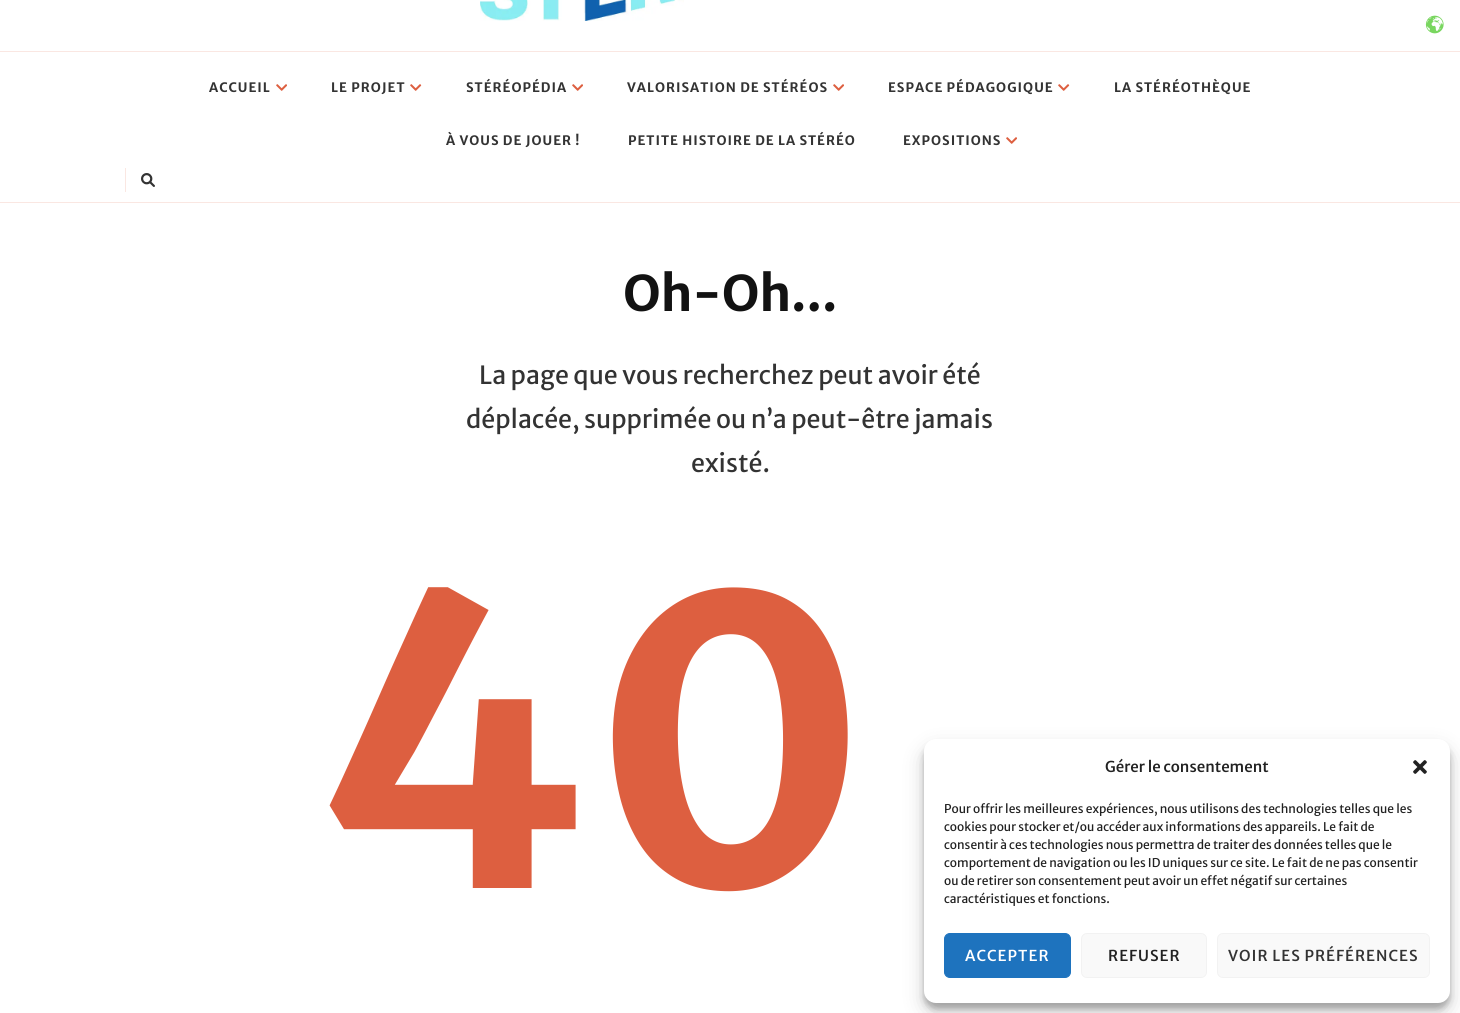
#include <cairo/cairo.h>
#include <math.h>
#include <stddef.h>

static cairo_t *cr;

static void use_color(int r, int g, int b) {
  cairo_set_source_rgb(cr, r / 255.0, g / 255.0, b / 255.0);
}

static void text(double x, double y, const char *s, const char *family, double size, int italic, int bold, int r, int g, int b) {
  cairo_select_font_face(cr, family, italic ? CAIRO_FONT_SLANT_ITALIC : CAIRO_FONT_SLANT_NORMAL,
    bold ? CAIRO_FONT_WEIGHT_BOLD : CAIRO_FONT_WEIGHT_NORMAL);
  cairo_set_font_size(cr, size);
  use_color(r, g, b);
  cairo_move_to(cr, x, y);
  cairo_show_text(cr, s);
}

static void spaced_text(double x, double y, const char *s, double letter, double word) {
  cairo_move_to(cr, x, y);
  while (*s) {
    char ch[5] = {0};
    int n = 0;
    do ch[n++] = *s++; while ((*s & 0xC0) == 0x80);
    cairo_show_text(cr, ch);
    cairo_rel_move_to(cr, letter + word * (*ch == ' '), 0);
  }
}

static void box(double x, double y, double w, double h, int r, int g, int b) {
  use_color(r, g, b);
  cairo_rectangle(cr, x, y, w, h);
  cairo_fill(cr);
}

static void round_rect(double x, double y, double w, double h, double r) {
  cairo_new_sub_path(cr);
  cairo_arc(cr, x + w - r, y + h - r, r, 0, M_PI / 2);
  cairo_arc(cr, x + r, y + h - r, r, M_PI / 2, M_PI);
  cairo_arc(cr, x + r, y + r, r, M_PI, 1.5 * M_PI);
  cairo_arc(cr, x + w - r, y + r, r, 1.5 * M_PI, 2 * M_PI);
  cairo_close_path(cr);
}

static void shadow(double x, double y, double w, double h, double r, double blur, double alpha) {
  cairo_push_group_with_content(cr, CAIRO_CONTENT_ALPHA);
  cairo_set_operator(cr, CAIRO_OPERATOR_SOURCE);
  for (int i = 15; i >= -15 && fmin(w, h) + blur * i / 3 > 0; i -= 2) {
    double e = blur * i / 6;
    cairo_set_source_rgba(cr, 0, 0, 0, alpha * erfc((i - 1) / 8.5) / 2);
    round_rect(x - e, y - e, w + 2 * e, h + 2 * e, fmax(0, fmin(r + e + blur * .6, fmin(w, h) / 2 + e)));
    cairo_fill(cr);
  }
  cairo_pattern_t *soft = cairo_pop_group(cr);
  cairo_mask(cr, soft);
  cairo_pattern_destroy(soft);
}

static void picture(const char *path, double x, double y, double w, double h) {
  cairo_surface_t *image = cairo_image_surface_create_from_png(path);
  cairo_save(cr);
  cairo_set_source_surface(cr, image, x, y);
  cairo_rectangle(cr, x, y, w, h);
  cairo_fill(cr);
  cairo_restore(cr);
  cairo_surface_destroy(image);
}

static void draw(void) {
  use_color(255, 255, 255);
  cairo_paint(cr);
  picture("img_01.png", 1425, 15, 19, 19);
  picture("img_02.png", 480, 0, 204, 21);
  box(0, 51, 1460, 1, 250, 231, 226);
  box(0, 202, 1460, 1, 250, 231, 226);
  picture("img_03.png", 276, 84, 11, 7);
  picture("img_04.png", 410, 84, 12, 7);
  picture("img_03.png", 572, 84, 11, 7);
  picture("img_03.png", 833, 84, 11, 7);
  picture("img_04.png", 1058, 84, 12, 7);
  picture("img_03.png", 1006, 137, 11, 7);
  box(125, 168, 1, 24, 250, 231, 226);
  picture("img_05.png", 141, 173, 14, 14);
  use_color(0, 0, 0);
  shadow(924, 745, 526, 264, 12, 3, 0.23);
  shadow(924, 749, 526, 264, 12, 10, 0.19);
  use_color(255, 255, 255);
  round_rect(924, 739, 526, 264, 12);
  cairo_fill(cr);
  picture("img_06.png", 1413, 760, 14, 14);
  use_color(30, 115, 190);
  round_rect(944.5, 933.5, 126, 44, 5.5);
  cairo_fill_preserve(cr);
  cairo_set_line_width(cr, 1);
  cairo_stroke(cr);
  use_color(249, 249, 249);
  round_rect(1081.5, 933.5, 125, 44, 5.5);
  cairo_fill_preserve(cr);
  use_color(242, 242, 242);
  cairo_stroke(cr);
  use_color(249, 249, 249);
  round_rect(1217.5, 933.5, 212, 44, 5.5);
  cairo_fill_preserve(cr);
  use_color(242, 242, 242);
  cairo_stroke(cr);
  cairo_select_font_face(cr, "Merriweather Sans", CAIRO_FONT_SLANT_NORMAL, CAIRO_FONT_WEIGHT_BOLD);
  cairo_set_font_size(cr, 13);
  use_color(51, 51, 51);
  spaced_text(209, 92, "ACCUEIL", 1, 0);
  spaced_text(331, 92, "LE PROJET", 1, 0);
  spaced_text(466, 92, "STÉRÉOPÉDIA", 1, 0);
  spaced_text(627, 92, "VALORISATION DE STÉRÉOS", 1, 0);
  spaced_text(888, 92, "ESPACE PÉDAGOGIQUE", 1, 0);
  spaced_text(1114, 92, "LA STÉRÉOTHÈQUE", 1, 0);
  spaced_text(446, 145, "À VOUS DE JOUER !", 1, 0);
  spaced_text(628, 145, "PETITE HISTOIRE DE LA STÉRÉO", 1, 0);
  spaced_text(903, 145, "EXPOSITIONS", 1, 0);
  text(623, 311, "Oh-Oh...", "Merriweather Sans", 49, 0, 1, 18, 18, 18);
  text(479, 384, "La page que vous recherchez peut avoir été", "Merriweather Sans", 25, 0, 0, 51, 51, 51);
  text(466, 428, "déplacée, supprimée ou n’a peut-être jamais", "Merriweather Sans", 25, 0, 0, 51, 51, 51);
  text(691, 472, "existé.", "Merriweather Sans", 25, 0, 0, 51, 51, 51);
  text(313, 888, "40", "Merriweather Sans", 400, 0, 1, 221, 95, 64);
  text(1105, 772, "Gérer le consentement", "Merriweather Sans Medium", 15, 0, 0, 34, 34, 34);
  text(944, 813, "Pour offrir les meilleures expériences, nous utilisons des technologies telles que les", "Merriweather Sans", 12, 0, 0, 34, 34, 34);
  text(944, 831, "cookies pour stocker et/ou accéder aux informations des appareils. Le fait de", "Merriweather Sans", 12, 0, 0, 34, 34, 34);
  text(944, 849, "consentir à ces technologies nous permettra de traiter des données telles que le", "Merriweather Sans", 12, 0, 0, 34, 34, 34);
  text(944, 867, "comportement de navigation ou les ID uniques sur ce site. Le fait de ne pas consentir", "Merriweather Sans", 12, 0, 0, 34, 34, 34);
  text(944, 885, "ou de retirer son consentement peut avoir un effet négatif sur certaines", "Merriweather Sans", 12, 0, 0, 34, 34, 34);
  text(944, 903, "caractéristiques et fonctions.", "Merriweather Sans", 12, 0, 0, 34, 34, 34);
  cairo_select_font_face(cr, "Merriweather Sans Medium", CAIRO_FONT_SLANT_NORMAL, CAIRO_FONT_WEIGHT_NORMAL);
  cairo_set_font_size(cr, 15);
  use_color(255, 255, 255);
  spaced_text(965, 961, "ACCEPTER", 1, 0);
  use_color(34, 34, 34);
  spaced_text(1108, 961, "REFUSER", 1, 0);
  use_color(51, 51, 51);
  spaced_text(1228, 961, "VOIR LES PRÉFÉRENCES", 1, 0);
}

int main(void) {
  cairo_surface_t *surface = cairo_image_surface_create(CAIRO_FORMAT_RGB24, 1460, 1013);
  cr = cairo_create(surface);
  cairo_font_options_t *options = cairo_font_options_create();
  cairo_font_options_set_hint_metrics(options, CAIRO_HINT_METRICS_OFF);
  cairo_font_options_set_hint_style(options, CAIRO_HINT_STYLE_NONE);
  cairo_set_font_options(cr, options);
  cairo_set_miter_limit(cr, 4);
  draw();
  cairo_surface_write_to_png(surface, "out.png");
  cairo_font_options_destroy(options);
  cairo_destroy(cr);
  cairo_surface_destroy(surface);
  return 0;
}
